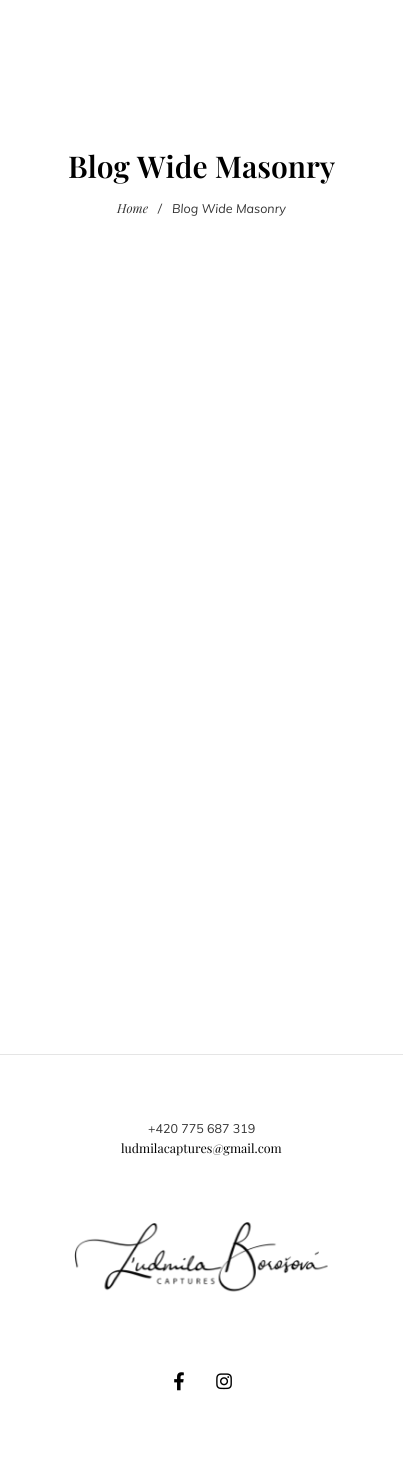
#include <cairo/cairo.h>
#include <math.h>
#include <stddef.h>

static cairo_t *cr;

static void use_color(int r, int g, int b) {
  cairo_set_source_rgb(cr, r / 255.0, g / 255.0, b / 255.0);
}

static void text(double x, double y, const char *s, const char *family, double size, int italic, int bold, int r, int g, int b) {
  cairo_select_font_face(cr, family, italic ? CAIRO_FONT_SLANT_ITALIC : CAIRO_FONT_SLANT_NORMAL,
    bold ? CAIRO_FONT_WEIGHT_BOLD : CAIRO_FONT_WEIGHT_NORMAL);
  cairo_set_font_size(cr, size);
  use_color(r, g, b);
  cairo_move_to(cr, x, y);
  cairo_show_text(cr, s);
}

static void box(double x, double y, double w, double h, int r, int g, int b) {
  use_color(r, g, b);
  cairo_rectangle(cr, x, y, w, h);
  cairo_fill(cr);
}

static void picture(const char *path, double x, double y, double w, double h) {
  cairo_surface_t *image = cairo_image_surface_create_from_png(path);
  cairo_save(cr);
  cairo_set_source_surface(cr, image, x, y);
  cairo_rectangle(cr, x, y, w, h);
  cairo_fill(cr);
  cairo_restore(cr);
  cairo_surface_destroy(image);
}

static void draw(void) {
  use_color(255, 255, 255);
  cairo_paint(cr);
  box(0, 1054, 403, 1, 229, 229, 229);
  picture("img_01.png", 74, 1222, 254, 70);
  picture("img_02.png", 174, 1372, 10, 19);
  picture("img_03.png", 216, 1373, 16, 17);
  text(68, 178, "Blog Wide Masonry", "Playfair Display SemiBold", 30, 0, 0, 0, 0, 0);
  text(117, 213, "Home", "Playfair Display", 12.5, 1, 0, 51, 51, 51);
  text(158, 213, "/", "Muli", 12.5, 1, 0, 51, 51, 51);
  text(172, 213, "Blog Wide Masonry", "Muli", 12.5, 1, 0, 51, 51, 51);
  text(148, 1133, "+420 775 687 319", "Muli", 12.5, 0, 0, 51, 51, 51);
  text(121, 1153, "ludmilacaptures@gmail.com", "Playfair Display", 12.5, 0, 0, 0, 0, 0);
}

int main(void) {
  cairo_surface_t *surface = cairo_image_surface_create(CAIRO_FORMAT_RGB24, 403, 1463);
  cr = cairo_create(surface);
  cairo_font_options_t *options = cairo_font_options_create();
  cairo_font_options_set_hint_metrics(options, CAIRO_HINT_METRICS_OFF);
  cairo_font_options_set_hint_style(options, CAIRO_HINT_STYLE_NONE);
  cairo_set_font_options(cr, options);
  cairo_set_miter_limit(cr, 4);
  draw();
  cairo_surface_write_to_png(surface, "out.png");
  cairo_font_options_destroy(options);
  cairo_destroy(cr);
  cairo_surface_destroy(surface);
  return 0;
}
